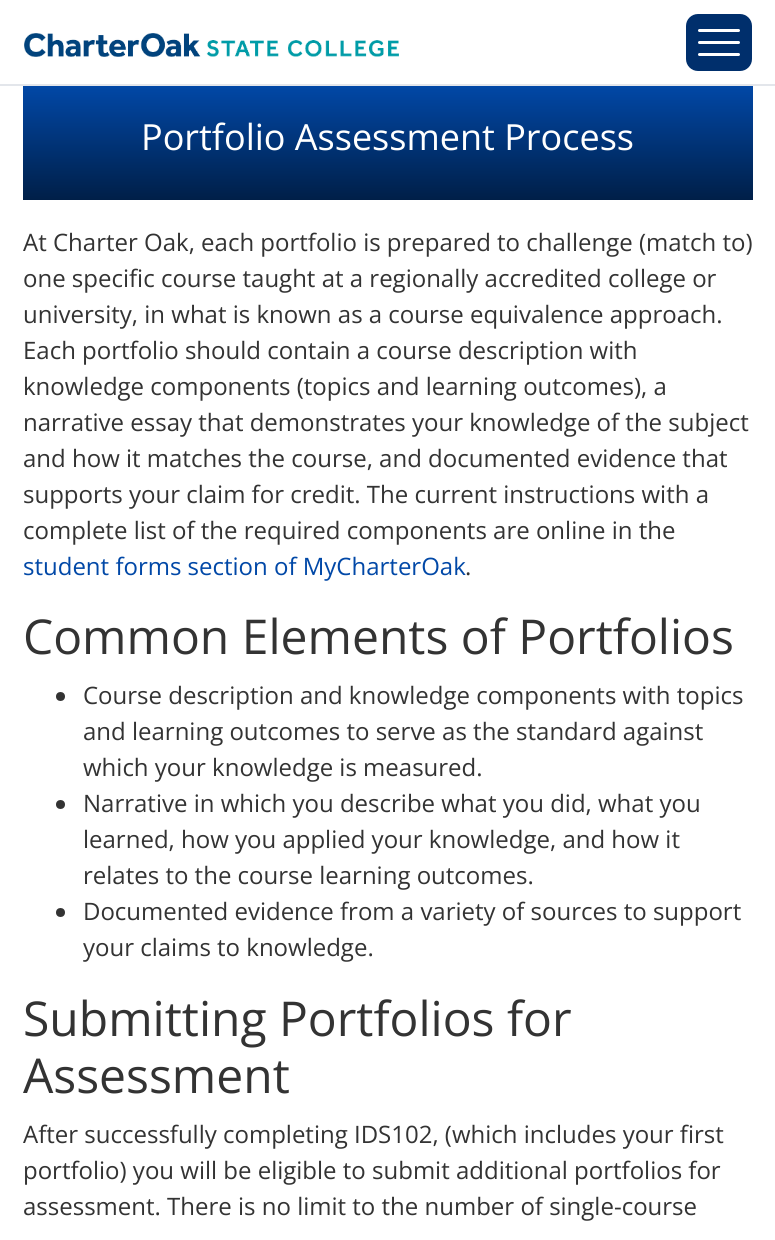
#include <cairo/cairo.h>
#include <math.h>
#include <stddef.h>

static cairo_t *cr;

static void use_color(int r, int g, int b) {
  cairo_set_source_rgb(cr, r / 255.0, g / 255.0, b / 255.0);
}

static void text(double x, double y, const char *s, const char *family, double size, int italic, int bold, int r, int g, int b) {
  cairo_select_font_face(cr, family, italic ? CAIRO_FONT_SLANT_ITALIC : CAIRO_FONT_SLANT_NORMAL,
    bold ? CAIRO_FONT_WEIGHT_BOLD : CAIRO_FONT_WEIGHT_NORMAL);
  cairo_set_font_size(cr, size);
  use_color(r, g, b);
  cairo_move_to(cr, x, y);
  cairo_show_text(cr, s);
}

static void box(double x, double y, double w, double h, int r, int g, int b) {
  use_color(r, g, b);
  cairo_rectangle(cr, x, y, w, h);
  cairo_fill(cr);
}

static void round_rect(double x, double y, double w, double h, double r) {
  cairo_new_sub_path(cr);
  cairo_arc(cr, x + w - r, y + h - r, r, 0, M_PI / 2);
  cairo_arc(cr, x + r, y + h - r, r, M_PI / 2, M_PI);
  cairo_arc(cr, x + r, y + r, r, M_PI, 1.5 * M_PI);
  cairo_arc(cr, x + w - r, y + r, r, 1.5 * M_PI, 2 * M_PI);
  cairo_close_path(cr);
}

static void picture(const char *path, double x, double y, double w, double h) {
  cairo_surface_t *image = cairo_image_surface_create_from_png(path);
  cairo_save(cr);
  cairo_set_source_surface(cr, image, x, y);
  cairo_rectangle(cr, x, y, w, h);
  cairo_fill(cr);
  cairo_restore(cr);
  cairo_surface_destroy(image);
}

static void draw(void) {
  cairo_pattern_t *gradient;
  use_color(255, 255, 255);
  cairo_paint(cr);
  box(0, 84, 775, 2, 227, 230, 235);
  picture("img_01.png", 24, 33, 375, 24);
  use_color(0, 47, 108);
  round_rect(686, 14, 66, 57, 12);
  cairo_fill(cr);
  use_color(255, 255, 255);
  round_rect(698, 29, 42, 3, 1.5);
  cairo_fill(cr);
  round_rect(698, 41, 42, 3, 1.5);
  cairo_fill(cr);
  round_rect(698, 53, 42, 3, 1.5);
  cairo_fill(cr);
  gradient = cairo_pattern_create_linear(388, 200, 388, 85);
  cairo_pattern_add_color_stop_rgba(gradient, 0, 0, 0.122, 0.282, 1);
  cairo_pattern_add_color_stop_rgba(gradient, 1, 0.004, 0.282, 0.655, 1);
  cairo_set_source(cr, gradient);
  cairo_pattern_destroy(gradient);
  cairo_rectangle(cr, 23, 86, 730, 114);
  cairo_fill(cr);
  use_color(51, 51, 51);
  cairo_arc(cr, 60.5, 696.5, 4.5, 0, 2 * M_PI);
  cairo_fill(cr);
  cairo_arc(cr, 60.5, 804.5, 4.5, 0, 2 * M_PI);
  cairo_fill(cr);
  cairo_arc(cr, 60.5, 912.5, 4.5, 0, 2 * M_PI);
  cairo_fill(cr);
  text(141, 150, "Portfolio Assessment Process", "Open Sans", 36, 0, 0, 255, 255, 255);
  text(23, 251, "At Charter Oak, each portfolio is prepared to challenge (match to)", "Open Sans", 24, 0, 0, 51, 51, 51);
  text(23, 287, "one specific course taught at a regionally accredited college or", "Open Sans", 24, 0, 0, 51, 51, 51);
  text(23, 323, "university, in what is known as a course equivalence approach.", "Open Sans", 24, 0, 0, 51, 51, 51);
  text(23, 359, "Each portfolio should contain a course description with", "Open Sans", 24, 0, 0, 51, 51, 51);
  text(23, 395, "knowledge components (topics and learning outcomes), a", "Open Sans", 24, 0, 0, 51, 51, 51);
  text(23, 431, "narrative essay that demonstrates your knowledge of the subject", "Open Sans", 24, 0, 0, 51, 51, 51);
  text(23, 467, "and how it matches the course, and documented evidence that", "Open Sans", 24, 0, 0, 51, 51, 51);
  text(23, 503, "supports your claim for credit. The current instructions with a", "Open Sans", 24, 0, 0, 51, 51, 51);
  text(23, 539, "complete list of the required components are online in the", "Open Sans", 24, 0, 0, 51, 51, 51);
  text(23, 575, "student forms section of MyCharterOak", "Open Sans", 24, 0, 0, 1, 72, 167);
  text(465, 575, ".", "Open Sans", 24, 0, 0, 51, 51, 51);
  text(23, 654, "Common Elements of Portfolios", "Open Sans", 48, 0, 0, 51, 51, 51);
  text(83, 704, "Course description and knowledge components with topics", "Open Sans", 24, 0, 0, 51, 51, 51);
  text(83, 740, "and learning outcomes to serve as the standard against", "Open Sans", 24, 0, 0, 51, 51, 51);
  text(83, 776, "which your knowledge is measured.", "Open Sans", 24, 0, 0, 51, 51, 51);
  text(83, 812, "Narrative in which you describe what you did, what you", "Open Sans", 24, 0, 0, 51, 51, 51);
  text(83, 848, "learned, how you applied your knowledge, and how it", "Open Sans", 24, 0, 0, 51, 51, 51);
  text(83, 884, "relates to the course learning outcomes.", "Open Sans", 24, 0, 0, 51, 51, 51);
  text(83, 920, "Documented evidence from a variety of sources to support", "Open Sans", 24, 0, 0, 51, 51, 51);
  text(83, 956, "your claims to knowledge.", "Open Sans", 24, 0, 0, 51, 51, 51);
  text(23, 1036, "Submitting Portfolios for", "Open Sans", 48, 0, 0, 51, 51, 51);
  text(23, 1093, "Assessment", "Open Sans", 48, 0, 0, 51, 51, 51);
  text(23, 1143, "After successfully completing IDS102, (which includes your first", "Open Sans", 24, 0, 0, 51, 51, 51);
  text(23, 1179, "portfolio) you will be eligible to submit additional portfolios for", "Open Sans", 24, 0, 0, 51, 51, 51);
  text(23, 1215, "assessment. There is no limit to the number of single-course", "Open Sans", 24, 0, 0, 51, 51, 51);
}

int main(void) {
  cairo_surface_t *surface = cairo_image_surface_create(CAIRO_FORMAT_RGB24, 775, 1240);
  cr = cairo_create(surface);
  cairo_font_options_t *options = cairo_font_options_create();
  cairo_font_options_set_hint_metrics(options, CAIRO_HINT_METRICS_OFF);
  cairo_font_options_set_hint_style(options, CAIRO_HINT_STYLE_NONE);
  cairo_set_font_options(cr, options);
  cairo_set_miter_limit(cr, 4);
  draw();
  cairo_surface_write_to_png(surface, "out.png");
  cairo_font_options_destroy(options);
  cairo_destroy(cr);
  cairo_surface_destroy(surface);
  return 0;
}
